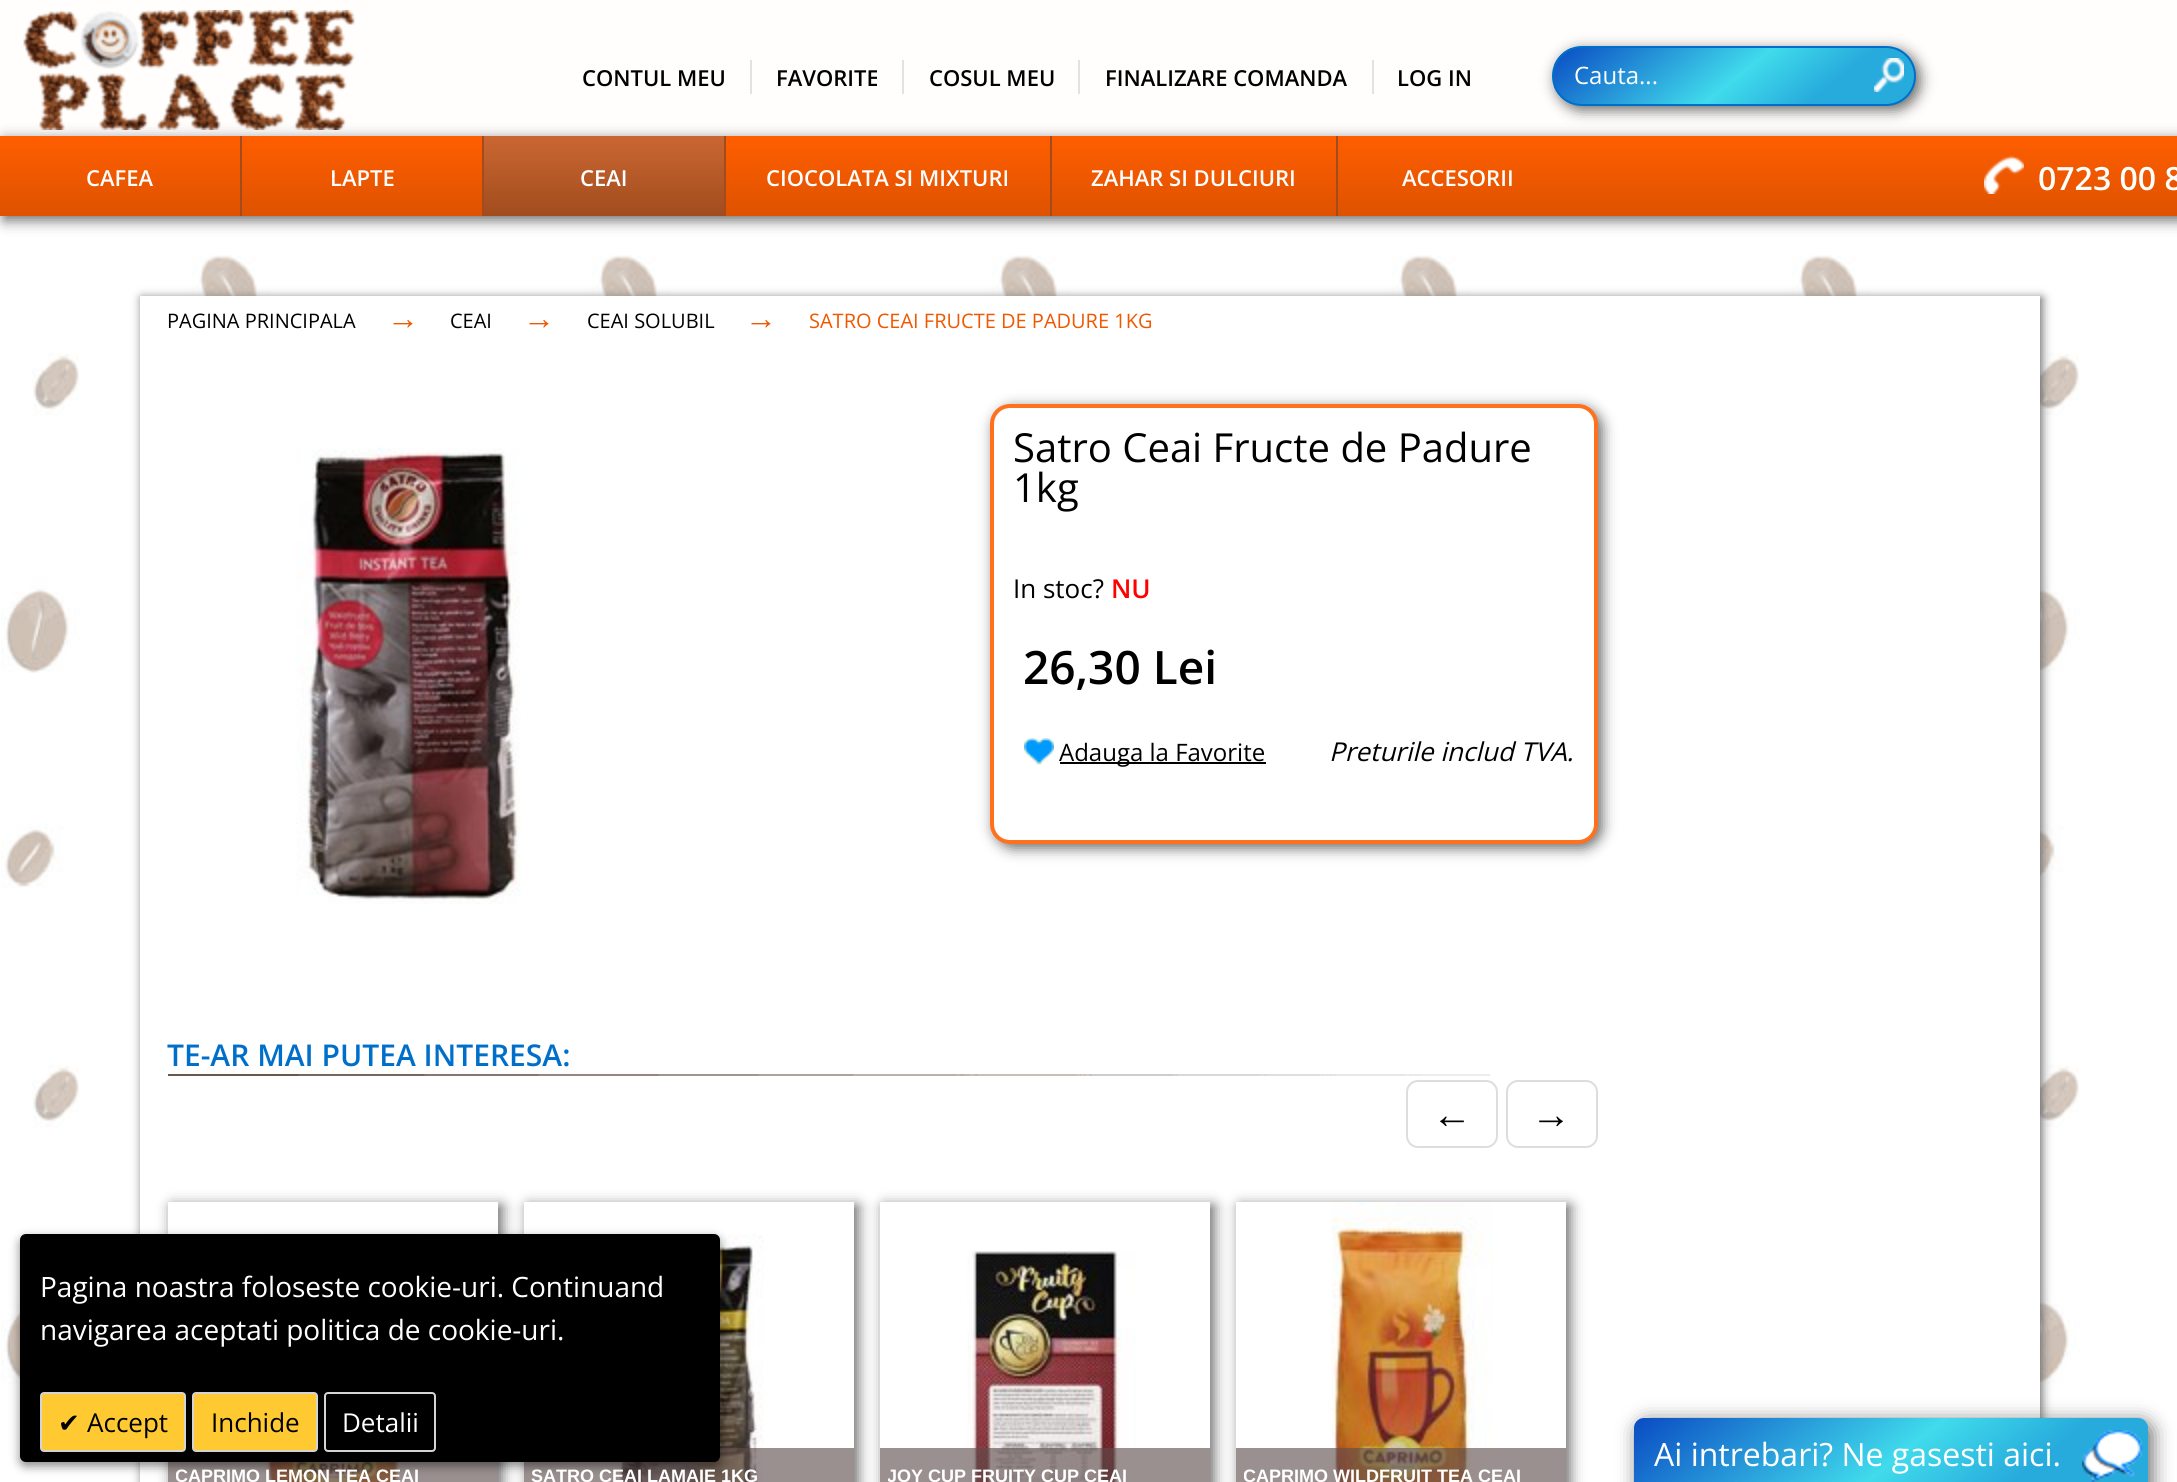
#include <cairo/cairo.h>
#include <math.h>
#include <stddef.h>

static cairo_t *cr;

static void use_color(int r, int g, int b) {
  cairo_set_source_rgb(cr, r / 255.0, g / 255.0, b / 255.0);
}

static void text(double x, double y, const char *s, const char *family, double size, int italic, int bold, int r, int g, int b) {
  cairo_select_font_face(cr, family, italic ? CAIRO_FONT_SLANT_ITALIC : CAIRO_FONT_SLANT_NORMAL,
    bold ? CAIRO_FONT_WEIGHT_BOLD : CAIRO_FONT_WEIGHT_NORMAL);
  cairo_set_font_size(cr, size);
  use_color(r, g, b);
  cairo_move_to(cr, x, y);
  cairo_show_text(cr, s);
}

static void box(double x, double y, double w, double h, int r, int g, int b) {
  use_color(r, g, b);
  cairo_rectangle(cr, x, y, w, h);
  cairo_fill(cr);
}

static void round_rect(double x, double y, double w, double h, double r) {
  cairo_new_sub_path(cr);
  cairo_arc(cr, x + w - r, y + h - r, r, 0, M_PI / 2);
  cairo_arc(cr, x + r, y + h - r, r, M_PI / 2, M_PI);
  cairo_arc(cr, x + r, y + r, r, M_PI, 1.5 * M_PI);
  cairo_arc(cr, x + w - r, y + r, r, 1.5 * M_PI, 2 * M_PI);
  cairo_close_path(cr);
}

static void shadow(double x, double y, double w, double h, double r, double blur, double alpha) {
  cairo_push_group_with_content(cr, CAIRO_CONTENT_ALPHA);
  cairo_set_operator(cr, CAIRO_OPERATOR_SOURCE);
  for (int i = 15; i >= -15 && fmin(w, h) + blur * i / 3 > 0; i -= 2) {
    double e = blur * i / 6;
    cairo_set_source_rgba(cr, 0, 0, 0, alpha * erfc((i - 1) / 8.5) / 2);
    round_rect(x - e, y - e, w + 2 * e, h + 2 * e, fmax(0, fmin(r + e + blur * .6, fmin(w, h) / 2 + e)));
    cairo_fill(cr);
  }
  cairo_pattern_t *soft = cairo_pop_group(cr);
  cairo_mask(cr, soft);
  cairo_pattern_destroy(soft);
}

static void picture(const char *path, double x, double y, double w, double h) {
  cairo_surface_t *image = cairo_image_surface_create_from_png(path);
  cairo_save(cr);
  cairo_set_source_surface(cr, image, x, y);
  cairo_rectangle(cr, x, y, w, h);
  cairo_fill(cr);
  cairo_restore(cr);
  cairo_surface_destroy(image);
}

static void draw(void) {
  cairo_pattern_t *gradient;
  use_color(255, 255, 255);
  cairo_paint(cr);
  picture("img_01.png", 1, 216, 2079, 1169);
  box(0, 0, 2177, 136, 255, 254, 252);
  use_color(103, 103, 103);
  shadow(4, 140, 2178, 80, 0, 7, 1);
  picture("img_02.png", 23, 10, 332, 120);
  box(750, 60, 2, 34, 226, 226, 226);
  box(902, 60, 2, 34, 226, 226, 226);
  box(1078, 60, 2, 34, 226, 226, 226);
  box(1372, 60, 2, 34, 226, 226, 226);
  use_color(103, 103, 103);
  shadow(1556, 50, 364, 60, 30, 7, 1);
  cairo_save(cr);
  round_rect(1552, 46, 364, 60, 30);
  cairo_clip(cr);
  gradient = cairo_pattern_create_linear(1649, -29, 1819, 181);
  cairo_pattern_add_color_stop_rgba(gradient, 0, 0.039, 0.294, 0.765, 1);
  cairo_pattern_add_color_stop_rgba(gradient, 0.51, 0.251, 0.859, 0.925, 1);
  cairo_pattern_add_color_stop_rgba(gradient, 0.75, 0.153, 0.671, 0.863, 1);
  cairo_set_source(cr, gradient);
  cairo_pattern_destroy(gradient);
  cairo_rectangle(cr, 1554, 48, 360, 56);
  cairo_fill(cr);
  cairo_restore(cr);
  round_rect(1553, 47, 362, 58, 29);
  use_color(0, 111, 202);
  cairo_stroke(cr);
  picture("img_03.png", 1874, 58, 30, 34);
  picture("img_04.png", 1874, 58, 30, 34);
  gradient = cairo_pattern_create_linear(1089, 136, 1089, 216);
  cairo_pattern_add_color_stop_rgba(gradient, 0, 1, 0.369, 0, 1);
  cairo_pattern_add_color_stop_rgba(gradient, 1, 0.871, 0.322, 0, 1);
  cairo_set_source(cr, gradient);
  cairo_pattern_destroy(gradient);
  cairo_rectangle(cr, 0, 136, 2177, 80);
  cairo_fill(cr);
  box(240, 136, 2, 80, 162, 76, 30);
  box(482, 136, 2, 80, 162, 76, 30);
  box(724, 136, 2, 80, 162, 76, 30);
  gradient = cairo_pattern_create_linear(604, 136, 604, 216);
  cairo_pattern_add_color_stop_rgba(gradient, 0, 0.792, 0.404, 0.196, 1);
  cairo_pattern_add_color_stop_rgba(gradient, 1, 0.635, 0.298, 0.118, 1);
  cairo_set_source(cr, gradient);
  cairo_pattern_destroy(gradient);
  cairo_rectangle(cr, 484, 136, 240, 80);
  cairo_fill(cr);
  box(1050, 136, 2, 80, 162, 76, 30);
  box(1336, 136, 2, 80, 162, 76, 30);
  picture("img_05.png", 1984, 155, 40, 39);
  use_color(103, 103, 103);
  shadow(142, 298, 1900, 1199, 0, 5, 1);
  box(140, 296, 1900, 1186, 255, 255, 255);
  picture("img_06.png", 296, 447, 225, 457);
  use_color(103, 103, 103);
  shadow(994, 408, 608, 440, 20, 7, 1);
  use_color(255, 255, 255);
  round_rect(992, 406, 604, 436, 18);
  cairo_fill_preserve(cr);
  use_color(255, 113, 29);
  cairo_set_line_width(cr, 4);
  cairo_stroke(cr);
  picture("img_07.png", 1024, 738, 30, 27);
  box(1060, 762, 206, 2, 0, 0, 0);
  picture("img_08.png", 168, 1074, 1322, 2);
  round_rect(1407, 1081, 90, 66, 11);
  use_color(221, 221, 221);
  cairo_set_line_width(cr, 2);
  cairo_stroke(cr);
  round_rect(1507, 1081, 90, 66, 11);
  cairo_stroke(cr);
  cairo_save(cr);
  cairo_set_fill_rule(cr, CAIRO_FILL_RULE_EVEN_ODD);
  cairo_new_path(cr);
  cairo_move_to(cr, 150, 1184);
  cairo_line_to(cr, 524, 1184);
  cairo_line_to(cr, 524, 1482);
  cairo_line_to(cr, 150, 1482);
  cairo_close_path(cr);
  cairo_move_to(cr, 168, 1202);
  cairo_line_to(cr, 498, 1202);
  cairo_line_to(cr, 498, 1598);
  cairo_line_to(cr, 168, 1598);
  cairo_close_path(cr);
  cairo_clip(cr);
  use_color(103, 103, 103);
  shadow(172, 1206, 330, 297, 0, 7, 1);
  cairo_restore(cr);
  picture("img_09.png", 263, 1233, 156, 249);
  cairo_set_source_rgba(cr, 0.369, 0.302, 0.302, 0.62);
  cairo_rectangle(cr, 168, 1462, 330, 20);
  cairo_fill(cr);
  cairo_save(cr);
  cairo_set_fill_rule(cr, CAIRO_FILL_RULE_EVEN_ODD);
  cairo_new_path(cr);
  cairo_move_to(cr, 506, 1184);
  cairo_line_to(cr, 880, 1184);
  cairo_line_to(cr, 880, 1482);
  cairo_line_to(cr, 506, 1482);
  cairo_close_path(cr);
  cairo_move_to(cr, 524, 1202);
  cairo_line_to(cr, 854, 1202);
  cairo_line_to(cr, 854, 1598);
  cairo_line_to(cr, 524, 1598);
  cairo_close_path(cr);
  cairo_clip(cr);
  use_color(103, 103, 103);
  shadow(528, 1206, 330, 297, 0, 7, 1);
  cairo_restore(cr);
  picture("img_10.png", 619, 1233, 145, 249);
  cairo_rectangle(cr, 524, 1448, 330, 34);
  cairo_fill(cr);
  cairo_save(cr);
  cairo_set_fill_rule(cr, CAIRO_FILL_RULE_EVEN_ODD);
  cairo_new_path(cr);
  cairo_move_to(cr, 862, 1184);
  cairo_line_to(cr, 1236, 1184);
  cairo_line_to(cr, 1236, 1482);
  cairo_line_to(cr, 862, 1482);
  cairo_close_path(cr);
  cairo_move_to(cr, 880, 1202);
  cairo_line_to(cr, 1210, 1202);
  cairo_line_to(cr, 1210, 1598);
  cairo_line_to(cr, 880, 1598);
  cairo_close_path(cr);
  cairo_clip(cr);
  use_color(103, 103, 103);
  shadow(884, 1206, 330, 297, 0, 7, 1);
  cairo_restore(cr);
  picture("img_11.png", 967, 1250, 169, 232);
  cairo_rectangle(cr, 880, 1448, 330, 34);
  cairo_fill(cr);
  cairo_save(cr);
  cairo_set_fill_rule(cr, CAIRO_FILL_RULE_EVEN_ODD);
  cairo_new_path(cr);
  cairo_move_to(cr, 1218, 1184);
  cairo_line_to(cr, 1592, 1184);
  cairo_line_to(cr, 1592, 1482);
  cairo_line_to(cr, 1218, 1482);
  cairo_close_path(cr);
  cairo_move_to(cr, 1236, 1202);
  cairo_line_to(cr, 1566, 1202);
  cairo_line_to(cr, 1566, 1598);
  cairo_line_to(cr, 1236, 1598);
  cairo_close_path(cr);
  cairo_clip(cr);
  use_color(103, 103, 103);
  shadow(1240, 1206, 330, 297, 0, 7, 1);
  cairo_restore(cr);
  picture("img_12.png", 1331, 1202, 162, 280);
  cairo_rectangle(cr, 1236, 1448, 330, 34);
  cairo_fill(cr);
  use_color(0, 0, 0);
  shadow(20, 1238, 700, 228, 6, 5, 0.47);
  use_color(0, 0, 0);
  round_rect(20, 1234, 700, 228, 6);
  cairo_fill(cr);
  use_color(255, 201, 49);
  round_rect(41, 1393, 144, 58, 3);
  cairo_fill_preserve(cr);
  use_color(212, 212, 212);
  cairo_stroke(cr);
  use_color(255, 201, 49);
  round_rect(193, 1393, 124, 58, 3);
  cairo_fill_preserve(cr);
  use_color(212, 212, 212);
  cairo_stroke(cr);
  round_rect(325, 1393, 110, 58, 3);
  cairo_stroke(cr);
  use_color(103, 103, 103);
  shadow(1638, 1422, 514, 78, 10, 10, 1);
  gradient = cairo_pattern_create_linear(1770, 1308, 2012, 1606);
  cairo_pattern_add_color_stop_rgba(gradient, 0, 0.039, 0.294, 0.765, 1);
  cairo_pattern_add_color_stop_rgba(gradient, 0.51, 0.251, 0.859, 0.925, 1);
  cairo_pattern_add_color_stop_rgba(gradient, 0.75, 0.153, 0.671, 0.863, 1);
  cairo_set_source(cr, gradient);
  cairo_pattern_destroy(gradient);
  round_rect(1634, 1418, 514, 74, 10);
  cairo_fill(cr);
  picture("img_13.png", 2082, 1430, 61, 52);
  text(582, 86, "CONTUL MEU", "Open Sans SemiBold", 22, 0, 0, 0, 0, 0);
  text(776, 86, "FAVORITE", "Open Sans SemiBold", 22, 0, 0, 0, 0, 0);
  text(929, 86, "COSUL MEU", "Open Sans SemiBold", 22, 0, 0, 0, 0, 0);
  text(1105, 86, "FINALIZARE COMANDA", "Open Sans SemiBold", 22, 0, 0, 0, 0, 0);
  text(1397, 86, "LOG IN", "Open Sans SemiBold", 22, 0, 0, 0, 0, 0);
  text(1574, 84, "Cauta...", "Open Sans", 24, 0, 0, 255, 255, 255);
  text(86, 186, "CAFEA", "Open Sans SemiBold", 22, 0, 0, 255, 255, 255);
  text(330, 186, "LAPTE", "Open Sans SemiBold", 22, 0, 0, 255, 255, 255);
  text(580, 186, "CEAI", "Open Sans SemiBold", 22, 0, 0, 255, 255, 255);
  text(766, 186, "CIOCOLATA SI MIXTURI", "Open Sans SemiBold", 22, 0, 0, 255, 255, 255);
  text(1091, 186, "ZAHAR SI DULCIURI", "Open Sans SemiBold", 22, 0, 0, 255, 255, 255);
  text(1402, 186, "ACCESORII", "Open Sans SemiBold", 22, 0, 0, 255, 255, 255);
  text(2038, 190, "0723 00 8", "Open Sans SemiBold", 32, 0, 0, 255, 255, 255);
  text(167, 328, "PAGINA PRINCIPALA", "Open Sans", 20, 0, 0, 0, 0, 0);
  text(387, 329, "→", "Liberation Sans", 32, 0, 0, 239, 88, 0);
  text(450, 328, "CEAI", "Open Sans", 20, 0, 0, 0, 0, 0);
  text(523, 329, "→", "Liberation Sans", 32, 0, 0, 239, 88, 0);
  text(587, 328, "CEAI SOLUBIL", "Open Sans", 20, 0, 0, 0, 0, 0);
  text(745, 329, "→", "Liberation Sans", 32, 0, 0, 239, 88, 0);
  text(809, 328, "SATRO CEAI FRUCTE DE PADURE 1KG", "Open Sans", 20, 0, 0, 239, 88, 0);
  text(1013, 462, "Satro Ceai Fructe de Padure", "Open Sans", 40, 0, 0, 0, 0, 0);
  text(1013, 502, "1kg", "Open Sans", 40, 0, 0, 0, 0, 0);
  text(1013, 598, "In stoc?", "Open Sans", 26, 0, 0, 0, 0, 0);
  text(1111, 598, "NU", "Open Sans SemiBold", 26, 0, 0, 255, 0, 0);
  text(1023, 684, "26,30 Lei", "Open Sans SemiBold", 46, 0, 0, 0, 0, 0);
  text(1059, 761, "Adauga la Favorite", "Open Sans", 24, 0, 0, 0, 0, 0);
  text(1329, 761, "Preturile includ TVA.", "Open Sans", 26, 1, 0, 0, 0, 0);
  text(167, 1066, "TE-AR MAI PUTEA INTERESA:", "Open Sans SemiBold", 30, 0, 0, 0, 111, 202);
  text(1432, 1128, "←", "Liberation Sans", 40, 0, 0, 0, 0, 0);
  text(1531, 1128, "→", "Liberation Sans", 40, 0, 0, 0, 0, 0);
  cairo_save(cr);
  cairo_rectangle(cr, 176, 1454, 314, 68);
  cairo_clip(cr);
  text(175, 1482, "CAPRIMO LEMON TEA CEAI", "Liberation Sans", 18, 0, 1, 255, 255, 255);
  cairo_restore(cr);
  text(531, 1482, "SATRO CEAI LAMAIE 1KG", "Liberation Sans", 18, 0, 1, 255, 255, 255);
  cairo_save(cr);
  cairo_rectangle(cr, 888, 1454, 314, 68);
  cairo_clip(cr);
  text(887, 1482, "JOY CUP FRUITY CUP CEAI", "Liberation Sans", 18, 0, 1, 255, 255, 255);
  cairo_restore(cr);
  cairo_save(cr);
  cairo_rectangle(cr, 1244, 1454, 314, 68);
  cairo_clip(cr);
  text(1243, 1482, "CAPRIMO WILDFRUIT TEA CEAI", "Liberation Sans", 18, 0, 1, 255, 255, 255);
  cairo_restore(cr);
  text(40, 1297, "Pagina noastra foloseste cookie-uri. Continuand", "Open Sans", 28, 0, 0, 255, 255, 255);
  text(40, 1340, "navigarea aceptati politica de cookie-uri.", "Open Sans", 28, 0, 0, 255, 255, 255);
  text(58, 1432, "✔", "DejaVu Sans", 26, 0, 0, 0, 0, 0);
  text(87, 1432, "Accept", "Open Sans", 26, 0, 0, 0, 0, 0);
  text(211, 1432, "Inchide", "Open Sans", 26, 0, 0, 0, 0, 0);
  text(342, 1432, "Detalii", "Open Sans", 26, 0, 0, 255, 255, 255);
  text(1654, 1466, "Ai intrebari? Ne gasesti aici.", "Open Sans", 32, 0, 0, 255, 255, 255);
}

int main(void) {
  cairo_surface_t *surface = cairo_image_surface_create(CAIRO_FORMAT_RGB24, 2177, 1482);
  cr = cairo_create(surface);
  cairo_font_options_t *options = cairo_font_options_create();
  cairo_font_options_set_hint_metrics(options, CAIRO_HINT_METRICS_OFF);
  cairo_font_options_set_hint_style(options, CAIRO_HINT_STYLE_NONE);
  cairo_set_font_options(cr, options);
  cairo_set_miter_limit(cr, 4);
  draw();
  cairo_surface_write_to_png(surface, "out.png");
  cairo_font_options_destroy(options);
  cairo_destroy(cr);
  cairo_surface_destroy(surface);
  return 0;
}
